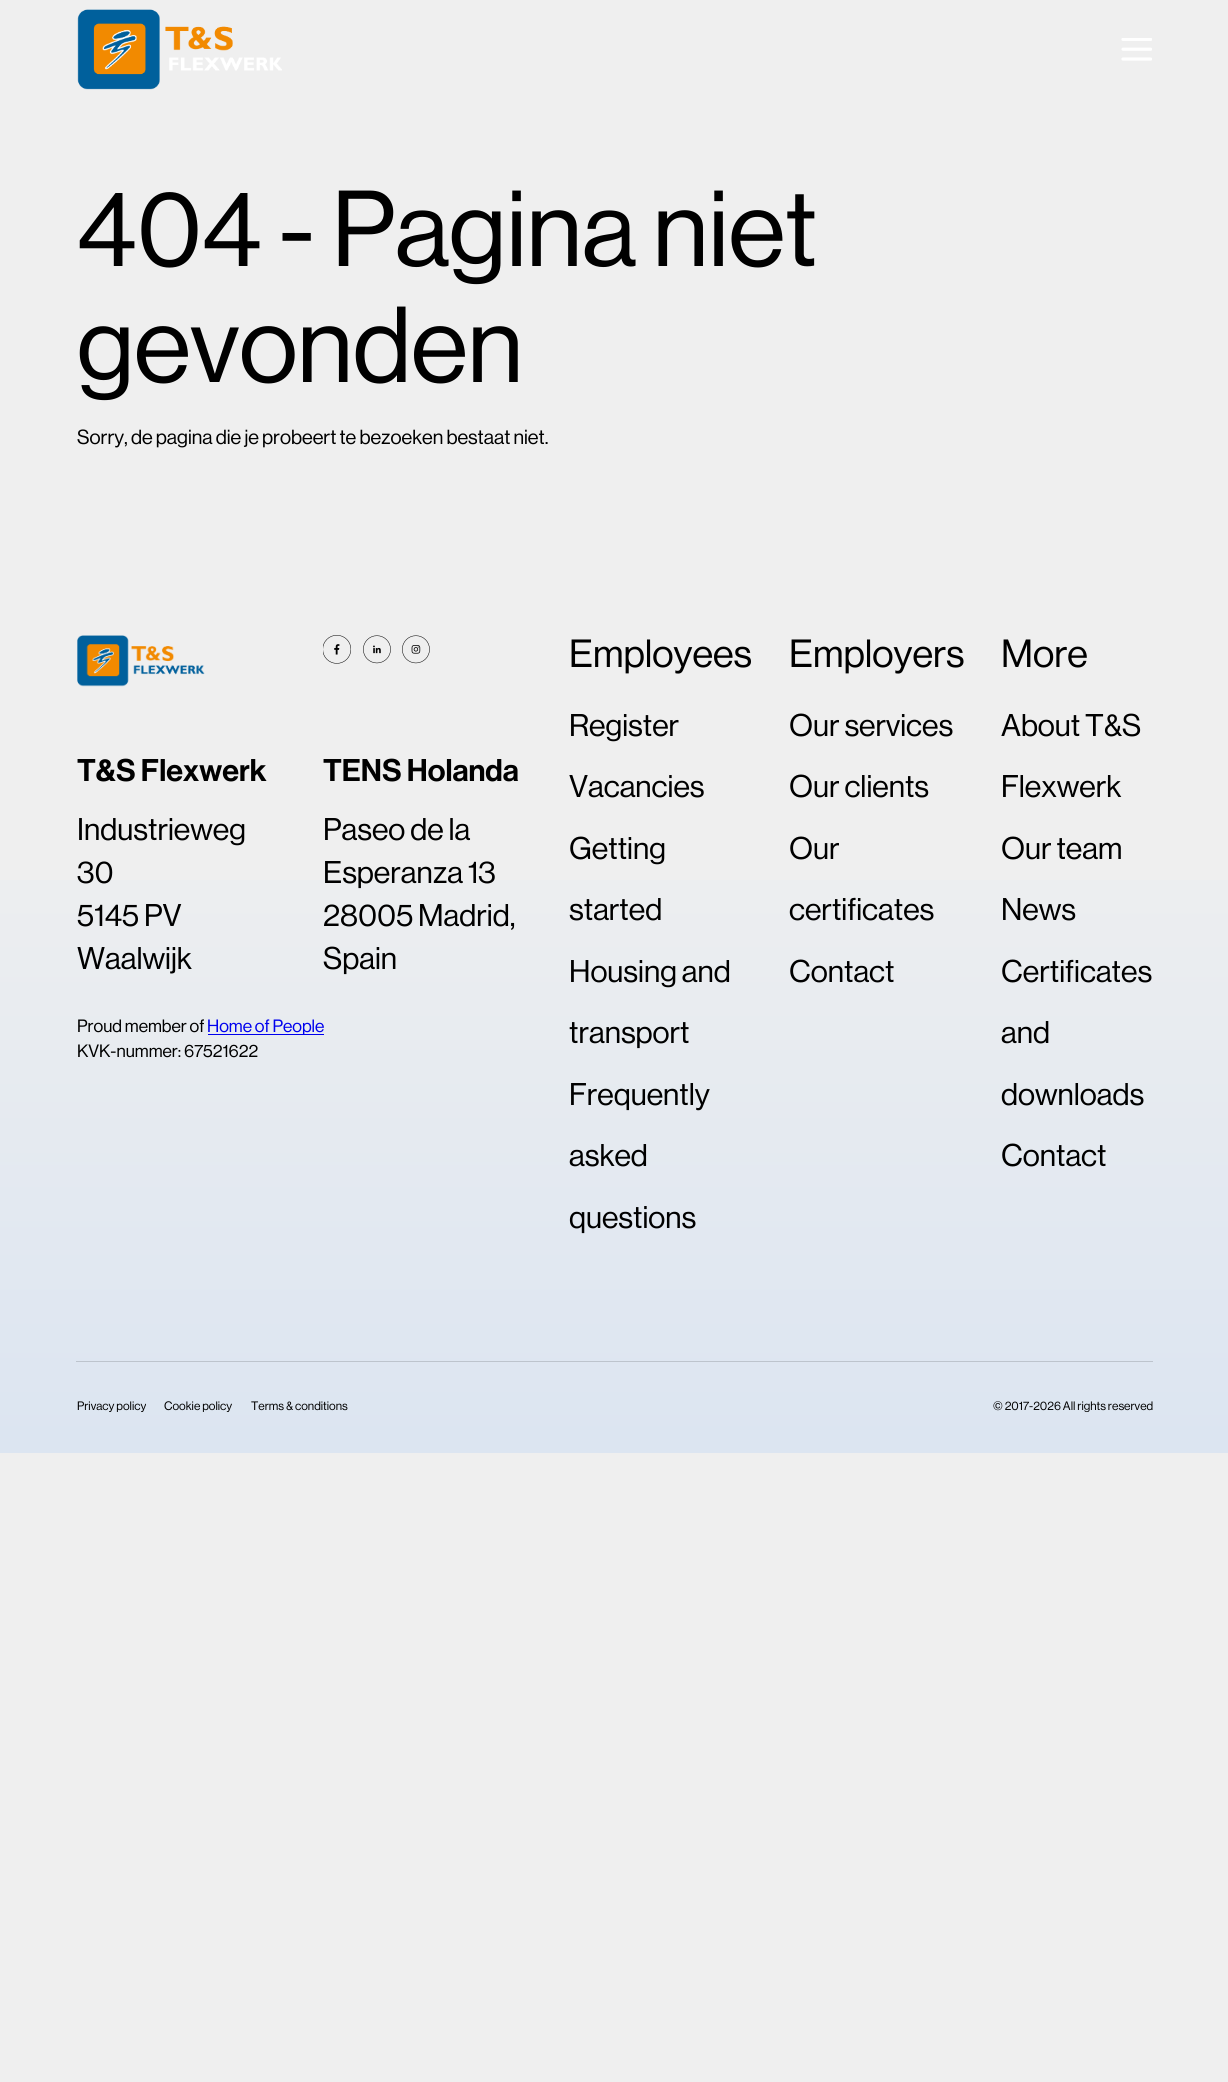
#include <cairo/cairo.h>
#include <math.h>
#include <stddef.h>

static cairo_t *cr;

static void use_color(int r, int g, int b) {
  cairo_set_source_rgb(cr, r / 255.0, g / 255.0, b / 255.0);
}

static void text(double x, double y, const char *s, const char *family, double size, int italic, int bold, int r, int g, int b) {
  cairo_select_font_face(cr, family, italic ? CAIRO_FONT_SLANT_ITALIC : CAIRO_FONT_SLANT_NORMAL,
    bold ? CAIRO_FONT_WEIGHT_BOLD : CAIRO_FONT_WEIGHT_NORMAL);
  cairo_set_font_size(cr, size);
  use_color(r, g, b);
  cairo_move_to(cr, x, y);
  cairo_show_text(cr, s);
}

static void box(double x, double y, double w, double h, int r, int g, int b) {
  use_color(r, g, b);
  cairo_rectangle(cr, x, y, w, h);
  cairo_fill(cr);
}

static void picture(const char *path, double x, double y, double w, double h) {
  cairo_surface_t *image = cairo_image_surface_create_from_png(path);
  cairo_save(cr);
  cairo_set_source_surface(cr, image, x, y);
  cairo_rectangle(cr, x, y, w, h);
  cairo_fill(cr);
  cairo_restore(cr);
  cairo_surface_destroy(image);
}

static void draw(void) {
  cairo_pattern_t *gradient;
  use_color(239, 239, 239);
  cairo_paint(cr);
  picture("img_01.png", 77, 9, 205, 81);
  picture("img_02.png", 1121, 38, 31, 23);
  gradient = cairo_pattern_create_linear(614, 1511, 614, 524);
  cairo_pattern_add_color_stop_rgba(gradient, 0, 0.855, 0.894, 0.945, 1);
  cairo_pattern_add_color_stop_rgba(gradient, 0.76, 0.941, 0.941, 0.941, 1);
  cairo_set_source(cr, gradient);
  cairo_pattern_destroy(gradient);
  cairo_rectangle(cr, 0, 880, 1228, 573);
  cairo_fill(cr);
  picture("img_03.png", 77, 635, 128, 52);
  picture("img_04.png", 323, 635, 28, 29);
  picture("img_05.png", 363, 635, 28, 29);
  picture("img_06.png", 402, 635, 28, 29);
  box(208, 1034, 116, 1, 0, 0, 238);
  box(76, 1361, 1077, 1, 189, 196, 205);
  text(77, 266, "404 - Pagina niet", "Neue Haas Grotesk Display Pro", 105.5, 0, 0, 0, 0, 0);
  text(77, 382, "gevonden", "Neue Haas Grotesk Display Pro", 105.5, 0, 0, 0, 0, 0);
  text(77, 444, "Sorry, de pagina die je probeert te bezoeken bestaat niet.", "Neue Haas Grotesk Display Pro", 20, 0, 0, 0, 0, 0);
  text(77, 781, "T&S Flexwerk", "Neue Haas Grotesk Display Pro SemiBold", 30.75, 0, 0, 0, 0, 0);
  text(77, 840, "Industrieweg", "Neue Haas Grotesk Display Pro", 30.75, 0, 0, 0, 0, 0);
  text(77, 883, "30", "Neue Haas Grotesk Display Pro", 30.75, 0, 0, 0, 0, 0);
  text(77, 926, "5145 PV", "Neue Haas Grotesk Display Pro", 30.75, 0, 0, 0, 0, 0);
  text(77, 969, "Waalwijk", "Neue Haas Grotesk Display Pro", 30.75, 0, 0, 0, 0, 0);
  text(323, 781, "TENS Holanda", "Neue Haas Grotesk Display Pro SemiBold", 30.75, 0, 0, 0, 0, 0);
  text(323, 840, "Paseo de la", "Neue Haas Grotesk Display Pro", 30.75, 0, 0, 0, 0, 0);
  text(323, 883, "Esperanza 13", "Neue Haas Grotesk Display Pro", 30.75, 0, 0, 0, 0, 0);
  text(323, 926, "28005 Madrid,", "Neue Haas Grotesk Display Pro", 30.75, 0, 0, 0, 0, 0);
  text(323, 969, "Spain", "Neue Haas Grotesk Display Pro", 30.75, 0, 0, 0, 0, 0);
  text(77, 1032, "Proud member of", "Neue Haas Grotesk Display Pro", 17.5, 0, 0, 0, 0, 0);
  text(207, 1032, "Home of People", "Neue Haas Grotesk Display Pro", 17.5, 0, 0, 0, 0, 238);
  text(77, 1057, "KVK-nummer: 67521622", "Neue Haas Grotesk Display Pro", 17.5, 0, 0, 0, 0, 0);
  text(569, 667, "Employees", "Neue Haas Grotesk Display Pro", 38.5, 0, 0, 0, 0, 0);
  text(569, 736, "Register", "Neue Haas Grotesk Display Pro", 30.75, 0, 0, 0, 0, 0);
  text(569, 797, "Vacancies", "Neue Haas Grotesk Display Pro", 30.75, 0, 0, 0, 0, 0);
  text(569, 859, "Getting", "Neue Haas Grotesk Display Pro", 30.75, 0, 0, 0, 0, 0);
  text(569, 920, "started", "Neue Haas Grotesk Display Pro", 30.75, 0, 0, 0, 0, 0);
  text(569, 982, "Housing and", "Neue Haas Grotesk Display Pro", 30.75, 0, 0, 0, 0, 0);
  text(569, 1043, "transport", "Neue Haas Grotesk Display Pro", 30.75, 0, 0, 0, 0, 0);
  text(569, 1105, "Frequently", "Neue Haas Grotesk Display Pro", 30.75, 0, 0, 0, 0, 0);
  text(569, 1166, "asked", "Neue Haas Grotesk Display Pro", 30.75, 0, 0, 0, 0, 0);
  text(569, 1228, "questions", "Neue Haas Grotesk Display Pro", 30.75, 0, 0, 0, 0, 0);
  text(789, 667, "Employers", "Neue Haas Grotesk Display Pro", 38.5, 0, 0, 0, 0, 0);
  text(789, 736, "Our services", "Neue Haas Grotesk Display Pro", 30.75, 0, 0, 0, 0, 0);
  text(789, 797, "Our clients", "Neue Haas Grotesk Display Pro", 30.75, 0, 0, 0, 0, 0);
  text(789, 859, "Our", "Neue Haas Grotesk Display Pro", 30.75, 0, 0, 0, 0, 0);
  text(789, 920, "certificates", "Neue Haas Grotesk Display Pro", 30.75, 0, 0, 0, 0, 0);
  text(789, 982, "Contact", "Neue Haas Grotesk Display Pro", 30.75, 0, 0, 0, 0, 0);
  text(1001, 667, "More", "Neue Haas Grotesk Display Pro", 38.5, 0, 0, 0, 0, 0);
  text(1001, 736, "About T&S", "Neue Haas Grotesk Display Pro", 30.75, 0, 0, 0, 0, 0);
  text(1001, 797, "Flexwerk", "Neue Haas Grotesk Display Pro", 30.75, 0, 0, 0, 0, 0);
  text(1001, 859, "Our team", "Neue Haas Grotesk Display Pro", 30.75, 0, 0, 0, 0, 0);
  text(1001, 920, "News", "Neue Haas Grotesk Display Pro", 30.75, 0, 0, 0, 0, 0);
  text(1001, 982, "Certificates", "Neue Haas Grotesk Display Pro", 30.75, 0, 0, 0, 0, 0);
  text(1001, 1043, "and", "Neue Haas Grotesk Display Pro", 30.75, 0, 0, 0, 0, 0);
  text(1001, 1105, "downloads", "Neue Haas Grotesk Display Pro", 30.75, 0, 0, 0, 0, 0);
  text(1001, 1166, "Contact", "Neue Haas Grotesk Display Pro", 30.75, 0, 0, 0, 0, 0);
  text(77, 1410, "Privacy policy", "Neue Haas Grotesk Display Pro", 12, 0, 0, 0, 0, 0);
  text(164, 1410, "Cookie policy", "Neue Haas Grotesk Display Pro", 12, 0, 0, 0, 0, 0);
  text(251, 1410, "Terms & conditions", "Neue Haas Grotesk Display Pro", 12, 0, 0, 0, 0, 0);
  text(993, 1410, "© 2017-2026 All rights reserved", "Neue Haas Grotesk Display Pro", 12, 0, 0, 0, 0, 0);
}

int main(void) {
  cairo_surface_t *surface = cairo_image_surface_create(CAIRO_FORMAT_RGB24, 1228, 2082);
  cr = cairo_create(surface);
  cairo_font_options_t *options = cairo_font_options_create();
  cairo_font_options_set_hint_metrics(options, CAIRO_HINT_METRICS_OFF);
  cairo_font_options_set_hint_style(options, CAIRO_HINT_STYLE_NONE);
  cairo_set_font_options(cr, options);
  cairo_set_miter_limit(cr, 4);
  draw();
  cairo_surface_write_to_png(surface, "out.png");
  cairo_font_options_destroy(options);
  cairo_destroy(cr);
  cairo_surface_destroy(surface);
  return 0;
}
